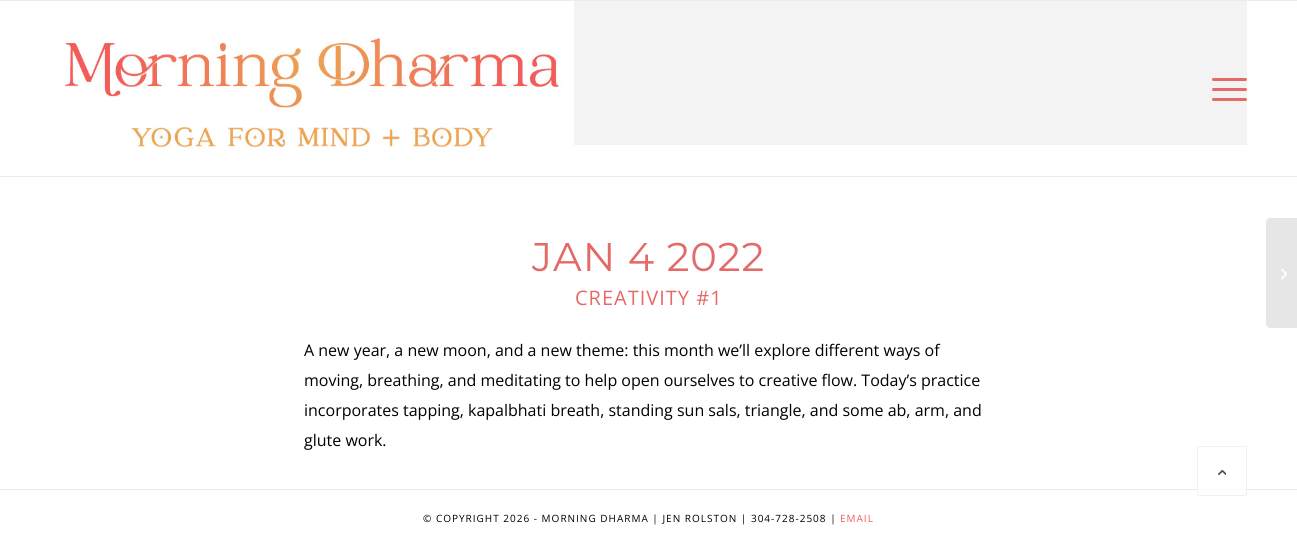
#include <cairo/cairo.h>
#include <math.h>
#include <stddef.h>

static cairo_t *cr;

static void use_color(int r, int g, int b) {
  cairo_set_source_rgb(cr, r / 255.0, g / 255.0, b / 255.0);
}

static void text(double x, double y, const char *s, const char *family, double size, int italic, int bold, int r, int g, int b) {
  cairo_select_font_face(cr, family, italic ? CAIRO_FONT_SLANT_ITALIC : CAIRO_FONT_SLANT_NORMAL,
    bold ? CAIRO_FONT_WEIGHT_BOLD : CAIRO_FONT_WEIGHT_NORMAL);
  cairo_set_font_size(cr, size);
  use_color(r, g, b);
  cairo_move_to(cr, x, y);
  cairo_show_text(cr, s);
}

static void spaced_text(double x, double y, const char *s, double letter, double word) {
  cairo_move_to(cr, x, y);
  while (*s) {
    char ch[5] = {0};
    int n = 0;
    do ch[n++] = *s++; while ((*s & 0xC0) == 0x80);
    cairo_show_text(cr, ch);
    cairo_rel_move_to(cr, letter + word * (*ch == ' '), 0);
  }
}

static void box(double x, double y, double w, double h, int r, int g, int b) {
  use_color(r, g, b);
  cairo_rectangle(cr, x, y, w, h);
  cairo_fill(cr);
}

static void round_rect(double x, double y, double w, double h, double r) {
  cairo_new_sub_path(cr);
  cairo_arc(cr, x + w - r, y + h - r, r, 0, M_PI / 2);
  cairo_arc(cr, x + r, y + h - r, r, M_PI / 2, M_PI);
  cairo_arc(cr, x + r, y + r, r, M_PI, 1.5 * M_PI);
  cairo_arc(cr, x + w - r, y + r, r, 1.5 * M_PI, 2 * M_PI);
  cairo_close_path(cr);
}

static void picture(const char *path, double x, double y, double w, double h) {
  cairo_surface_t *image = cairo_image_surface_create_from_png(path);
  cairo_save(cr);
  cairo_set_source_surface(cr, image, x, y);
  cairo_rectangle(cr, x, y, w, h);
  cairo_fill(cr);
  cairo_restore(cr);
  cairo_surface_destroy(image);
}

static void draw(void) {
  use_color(255, 255, 255);
  cairo_paint(cr);
  box(0, 0, 1297, 1, 235, 235, 235);
  box(0, 176, 1297, 1, 235, 235, 235);
  picture("img_01.png", 50, 1, 524, 147);
  box(574, 1, 673, 144, 243, 243, 243);
  use_color(227, 106, 103);
  round_rect(1212, 88, 35, 3, 1.5);
  cairo_fill(cr);
  round_rect(1212, 78, 35, 3, 1.5);
  cairo_fill(cr);
  round_rect(1212, 98, 35, 3, 1.5);
  cairo_fill(cr);
  box(0, 489, 1297, 1, 235, 235, 235);
  use_color(230, 230, 230);
  cairo_new_path(cr);
  cairo_move_to(cr, 1270, 218);
  cairo_line_to(cr, 1297, 218);
  cairo_line_to(cr, 1297, 328);
  cairo_line_to(cr, 1270, 328);
  cairo_curve_to(cr, 1268, 328, 1266, 326, 1266, 324);
  cairo_line_to(cr, 1266, 222);
  cairo_curve_to(cr, 1266, 220, 1268, 218, 1270, 218);
  cairo_close_path(cr);
  cairo_fill(cr);
  picture("img_02.png", 1281, 268, 6, 12);
  cairo_set_source_rgba(cr, 1, 1, 1, 0.7);
  round_rect(1197, 446, 50, 50, 2);
  cairo_fill(cr);
  round_rect(1197.5, 446.5, 49, 49, 1.5);
  cairo_set_source_rgba(cr, 0.922, 0.922, 0.922, 0.7);
  cairo_set_line_width(cr, 1);
  cairo_stroke(cr);
  picture("img_03.png", 1218, 470, 8, 5);
  cairo_select_font_face(cr, "Montserrat Thin", CAIRO_FONT_SLANT_NORMAL, CAIRO_FONT_WEIGHT_NORMAL);
  cairo_set_font_size(cr, 40);
  use_color(227, 106, 103);
  spaced_text(532, 271, "JAN 4 2022", 1, 0);
  cairo_select_font_face(cr, "Open Sans", CAIRO_FONT_SLANT_NORMAL, CAIRO_FONT_WEIGHT_NORMAL);
  cairo_set_font_size(cr, 20);
  spaced_text(575, 305, "CREATIVITY #1", 1, 0);
  text(304, 356, "A new year, a new moon, and a new theme: this month we’ll explore different ways of", "Open Sans", 16, 0, 0, 0, 0, 0);
  text(304, 386, "moving, breathing, and meditating to help open ourselves to creative flow. Today’s practice", "Open Sans", 16, 0, 0, 0, 0, 0);
  text(304, 416, "incorporates tapping, kapalbhati breath, standing sun sals, triangle, and some ab, arm, and", "Open Sans", 16, 0, 0, 0, 0, 0);
  text(304, 446, "glute work.", "Open Sans", 16, 0, 0, 0, 0, 0);
  cairo_set_font_size(cr, 10);
  spaced_text(423, 522, "© COPYRIGHT 2026 - MORNING DHARMA | JEN ROLSTON | 304-728-2508 |", 1, 0);
  use_color(242, 92, 92);
  spaced_text(840, 522, "EMAIL", 1, 0);
}

int main(void) {
  cairo_surface_t *surface = cairo_image_surface_create(CAIRO_FORMAT_RGB24, 1297, 546);
  cr = cairo_create(surface);
  cairo_font_options_t *options = cairo_font_options_create();
  cairo_font_options_set_hint_metrics(options, CAIRO_HINT_METRICS_OFF);
  cairo_font_options_set_hint_style(options, CAIRO_HINT_STYLE_NONE);
  cairo_set_font_options(cr, options);
  cairo_set_miter_limit(cr, 4);
  draw();
  cairo_surface_write_to_png(surface, "out.png");
  cairo_font_options_destroy(options);
  cairo_destroy(cr);
  cairo_surface_destroy(surface);
  return 0;
}
